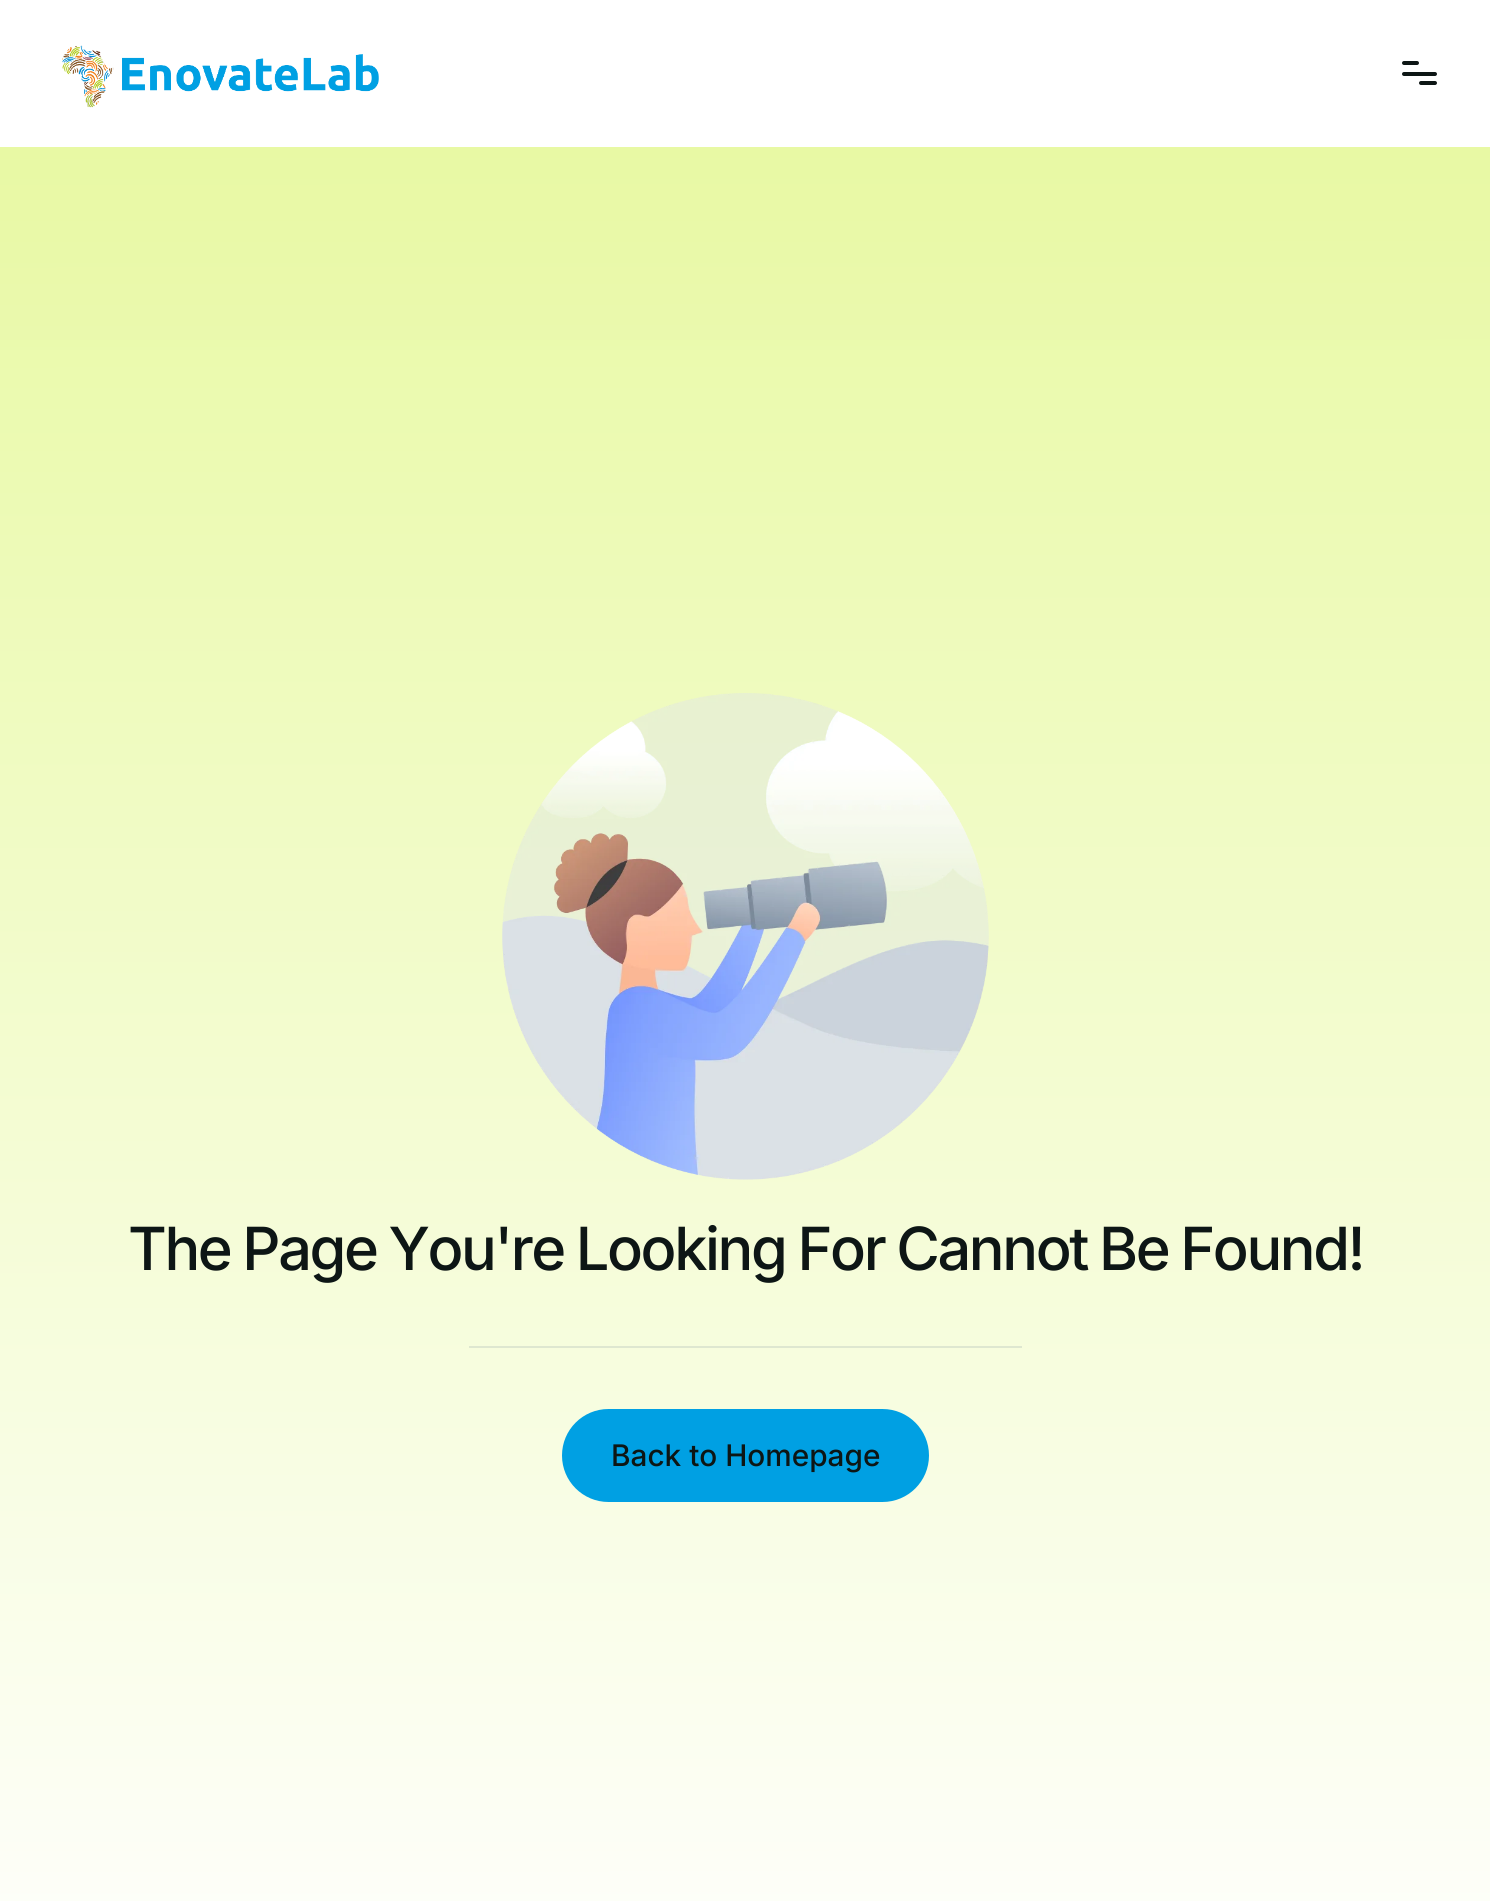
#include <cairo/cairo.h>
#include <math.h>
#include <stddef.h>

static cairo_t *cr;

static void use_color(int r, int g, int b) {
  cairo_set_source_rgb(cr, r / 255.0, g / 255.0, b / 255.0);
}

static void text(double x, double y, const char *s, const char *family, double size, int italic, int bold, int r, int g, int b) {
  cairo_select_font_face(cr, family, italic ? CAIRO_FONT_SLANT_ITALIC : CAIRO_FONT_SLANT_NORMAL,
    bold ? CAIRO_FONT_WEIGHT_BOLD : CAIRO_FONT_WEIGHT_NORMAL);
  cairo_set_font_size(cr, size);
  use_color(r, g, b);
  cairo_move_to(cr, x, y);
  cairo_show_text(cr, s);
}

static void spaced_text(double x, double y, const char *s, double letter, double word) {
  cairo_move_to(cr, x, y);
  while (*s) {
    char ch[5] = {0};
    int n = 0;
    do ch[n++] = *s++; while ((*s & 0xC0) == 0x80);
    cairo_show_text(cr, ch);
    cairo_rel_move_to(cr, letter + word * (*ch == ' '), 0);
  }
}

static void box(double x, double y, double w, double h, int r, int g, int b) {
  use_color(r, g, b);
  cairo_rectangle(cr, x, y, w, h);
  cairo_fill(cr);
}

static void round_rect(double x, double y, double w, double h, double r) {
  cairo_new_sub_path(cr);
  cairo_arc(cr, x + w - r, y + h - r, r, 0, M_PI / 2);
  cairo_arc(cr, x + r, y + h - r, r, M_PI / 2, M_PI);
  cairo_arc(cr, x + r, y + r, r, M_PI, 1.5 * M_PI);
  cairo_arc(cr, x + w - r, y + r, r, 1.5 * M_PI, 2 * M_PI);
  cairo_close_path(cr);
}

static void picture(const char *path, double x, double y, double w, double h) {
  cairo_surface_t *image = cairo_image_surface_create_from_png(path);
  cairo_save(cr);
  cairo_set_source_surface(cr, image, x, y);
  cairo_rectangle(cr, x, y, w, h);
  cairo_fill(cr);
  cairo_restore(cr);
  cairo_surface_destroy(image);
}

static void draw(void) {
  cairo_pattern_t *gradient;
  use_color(255, 255, 255);
  cairo_paint(cr);
  picture("img_01.png", 62, 45, 317, 63);
  use_color(13, 22, 21);
  round_rect(1402, 61, 17, 4, 2);
  cairo_fill(cr);
  round_rect(1402, 72, 35, 4, 2);
  cairo_fill(cr);
  round_rect(1419, 81, 18, 4, 2);
  cairo_fill(cr);
  gradient = cairo_pattern_create_linear(745, 147, 746, 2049);
  cairo_pattern_add_color_stop_rgba(gradient, 0, 0.91, 0.976, 0.643, 1);
  cairo_pattern_add_color_stop_rgba(gradient, 1, 1, 1, 1, 1);
  cairo_set_source(cr, gradient);
  cairo_pattern_destroy(gradient);
  cairo_rectangle(cr, 0, 147, 1490, 1754);
  cairo_fill(cr);
  picture("img_02.png", 502, 693, 487, 487);
  box(469, 1346, 553, 2, 222, 231, 208);
  use_color(0, 160, 227);
  round_rect(562, 1409, 367, 93, 46.5);
  cairo_fill(cr);
  cairo_select_font_face(cr, "Inter Medium", CAIRO_FONT_SLANT_NORMAL, CAIRO_FONT_WEIGHT_NORMAL);
  cairo_set_font_size(cr, 59.5);
  use_color(13, 22, 21);
  spaced_text(128, 1270, "The Page You're Looking For Cannot Be Found!", -2.4, -1.5);
  text(611, 1466, "Back to Homepage", "Inter Medium", 29.75, 0, 0, 13, 22, 21);
}

int main(void) {
  cairo_surface_t *surface = cairo_image_surface_create(CAIRO_FORMAT_RGB24, 1490, 1901);
  cr = cairo_create(surface);
  cairo_font_options_t *options = cairo_font_options_create();
  cairo_font_options_set_hint_metrics(options, CAIRO_HINT_METRICS_OFF);
  cairo_font_options_set_hint_style(options, CAIRO_HINT_STYLE_NONE);
  cairo_set_font_options(cr, options);
  cairo_set_miter_limit(cr, 4);
  draw();
  cairo_surface_write_to_png(surface, "out.png");
  cairo_font_options_destroy(options);
  cairo_destroy(cr);
  cairo_surface_destroy(surface);
  return 0;
}
